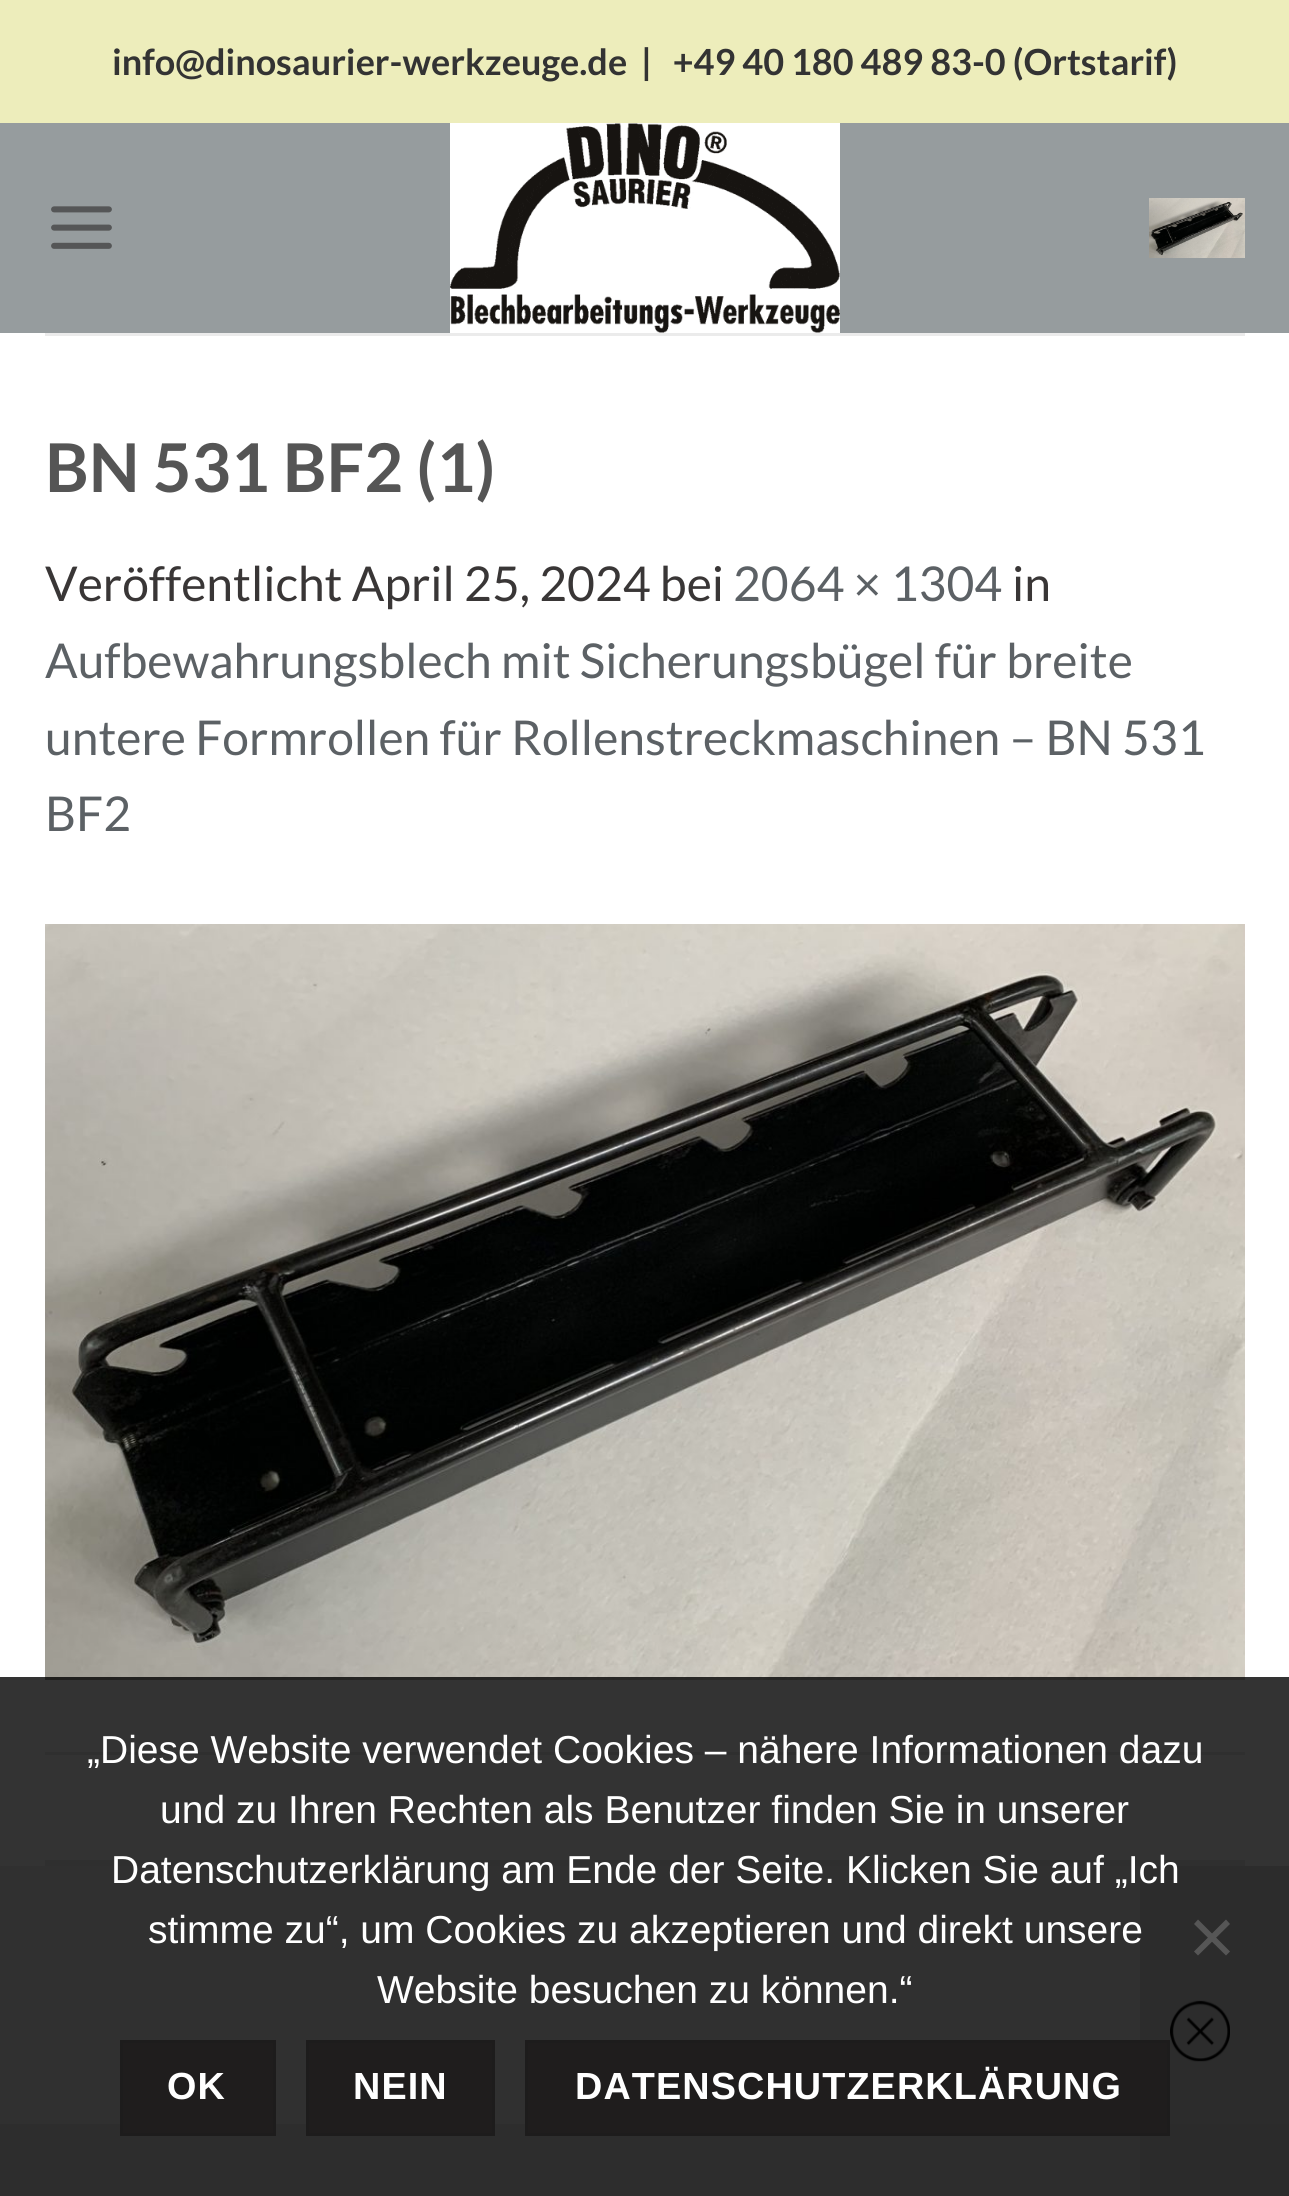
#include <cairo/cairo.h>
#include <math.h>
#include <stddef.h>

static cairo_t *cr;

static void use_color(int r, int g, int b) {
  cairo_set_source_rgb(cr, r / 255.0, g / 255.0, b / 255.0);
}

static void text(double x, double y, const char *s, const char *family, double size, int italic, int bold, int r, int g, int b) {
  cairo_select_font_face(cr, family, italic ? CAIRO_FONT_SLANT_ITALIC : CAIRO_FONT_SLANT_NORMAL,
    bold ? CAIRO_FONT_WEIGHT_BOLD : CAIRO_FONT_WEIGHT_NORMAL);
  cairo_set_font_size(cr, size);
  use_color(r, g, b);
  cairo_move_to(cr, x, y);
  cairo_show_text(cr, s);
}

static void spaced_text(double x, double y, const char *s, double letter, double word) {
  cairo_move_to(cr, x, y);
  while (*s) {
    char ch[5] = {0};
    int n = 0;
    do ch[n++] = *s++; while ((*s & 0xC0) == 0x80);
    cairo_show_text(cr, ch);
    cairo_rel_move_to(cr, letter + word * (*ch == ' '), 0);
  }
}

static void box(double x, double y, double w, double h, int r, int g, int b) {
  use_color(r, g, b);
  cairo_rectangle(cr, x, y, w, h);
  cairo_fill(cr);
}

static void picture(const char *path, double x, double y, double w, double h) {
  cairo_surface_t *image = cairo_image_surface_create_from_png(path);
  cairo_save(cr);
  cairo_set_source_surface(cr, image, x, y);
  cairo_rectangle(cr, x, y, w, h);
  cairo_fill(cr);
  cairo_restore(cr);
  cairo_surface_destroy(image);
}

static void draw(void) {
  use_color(255, 255, 255);
  cairo_paint(cr);
  box(0, 1866, 1140, 258, 240, 240, 240);
  box(1140, 1866, 149, 258, 218, 218, 218);
  box(0, 0, 1289, 123, 237, 237, 187);
  box(0, 123, 1289, 210, 150, 156, 158);
  picture("img_01.png", 51, 206, 61, 43);
  picture("img_02.png", 450, 123, 390, 210);
  picture("img_03.png", 1149, 198, 96, 60);
  box(45, 333, 1200, 3, 235, 235, 235);
  picture("img_04.png", 45, 924, 1200, 756);
  box(45, 1752, 1200, 3, 236, 236, 236);
  box(45, 1860, 1200, 6, 236, 236, 236);
  box(0, 2127, 1140, 69, 226, 226, 226);
  box(1140, 2127, 149, 69, 213, 213, 213);
  box(0, 2124, 525, 3, 226, 226, 226);
  box(1170, 2124, 119, 3, 213, 213, 213);
  picture("img_05.png", 1170, 2000, 60, 62);
  cairo_set_source_rgba(cr, 0, 0, 0, 0.8);
  cairo_rectangle(cr, 0, 1677, 1289, 519);
  cairo_fill(cr);
  use_color(86, 86, 86);
  cairo_new_path(cr);
  cairo_move_to(cr, 1226, 1919.5);
  cairo_line_to(cr, 1230, 1924);
  cairo_line_to(cr, 1198, 1955.5);
  cairo_line_to(cr, 1194, 1951.5);
  cairo_close_path(cr);
  cairo_fill(cr);
  cairo_new_path(cr);
  cairo_move_to(cr, 1194, 1924);
  cairo_line_to(cr, 1198, 1919.5);
  cairo_line_to(cr, 1230, 1951.5);
  cairo_line_to(cr, 1226, 1955.5);
  cairo_close_path(cr);
  cairo_fill(cr);
  use_color(31, 29, 29);
  cairo_rectangle(cr, 121.5, 2041.5, 153, 93);
  cairo_fill_preserve(cr);
  use_color(29, 28, 28);
  cairo_set_line_width(cr, 3);
  cairo_stroke(cr);
  use_color(31, 29, 29);
  cairo_rectangle(cr, 307.5, 2041.5, 186, 93);
  cairo_fill_preserve(cr);
  use_color(29, 28, 28);
  cairo_stroke(cr);
  use_color(31, 29, 29);
  cairo_rectangle(cr, 526.5, 2041.5, 642, 93);
  cairo_fill_preserve(cr);
  use_color(29, 28, 28);
  cairo_stroke(cr);
  text(112, 75, "info@dinosaurier-werkzeuge.de  |   +49 40 180 489 83-0 (Ortstarif)", "Lato", 36, 0, 1, 51, 51, 51);
  text(45, 492, "BN 531 BF2 (1)", "Lato", 67.25, 0, 1, 85, 85, 85);
  text(45, 601, "Veröffentlicht April 25, 2024 bei", "Lato", 48, 0, 0, 57, 54, 54);
  text(733, 601, "2064 × 1304", "Lato", 48, 0, 0, 92, 97, 101);
  text(1012, 601, "in", "Lato", 48, 0, 0, 57, 54, 54);
  text(45, 678, "Aufbewahrungsblech mit Sicherungsbügel für breite", "Lato", 48, 0, 0, 92, 97, 101);
  text(45, 755, "untere Formrollen für Rollenstreckmaschinen – BN 531", "Lato", 48, 0, 0, 92, 97, 101);
  text(45, 831, "BF2", "Lato", 48, 0, 0, 92, 97, 101);
  text(87, 1763, "„Diese Website verwendet Cookies – nähere Informationen dazu", "Liberation Sans", 39, 0, 0, 255, 255, 255);
  text(160, 1823, "und zu Ihren Rechten als Benutzer finden Sie in unserer", "Liberation Sans", 39, 0, 0, 255, 255, 255);
  text(111, 1883, "Datenschutzerklärung am Ende der Seite. Klicken Sie auf „Ich", "Liberation Sans", 39, 0, 0, 255, 255, 255);
  text(148, 1943, "stimme zu“, um Cookies zu akzeptieren und direkt unsere", "Liberation Sans", 39, 0, 0, 255, 255, 255);
  text(377, 2003, "Website besuchen zu können.“", "Liberation Sans", 39, 0, 0, 255, 255, 255);
  cairo_select_font_face(cr, "Liberation Sans", CAIRO_FONT_SLANT_NORMAL, CAIRO_FONT_WEIGHT_BOLD);
  cairo_set_font_size(cr, 37.8);
  spaced_text(167, 2099, "OK", 1.1, 0);
  spaced_text(353, 2099, "NEIN", 1.1, 0);
  spaced_text(575, 2099, "DATENSCHUTZERKLÄRUNG", 1.1, 0);
}

int main(void) {
  cairo_surface_t *surface = cairo_image_surface_create(CAIRO_FORMAT_RGB24, 1289, 2196);
  cr = cairo_create(surface);
  cairo_font_options_t *options = cairo_font_options_create();
  cairo_font_options_set_hint_metrics(options, CAIRO_HINT_METRICS_OFF);
  cairo_font_options_set_hint_style(options, CAIRO_HINT_STYLE_NONE);
  cairo_set_font_options(cr, options);
  cairo_set_miter_limit(cr, 4);
  draw();
  cairo_surface_write_to_png(surface, "out.png");
  cairo_font_options_destroy(options);
  cairo_destroy(cr);
  cairo_surface_destroy(surface);
  return 0;
}
